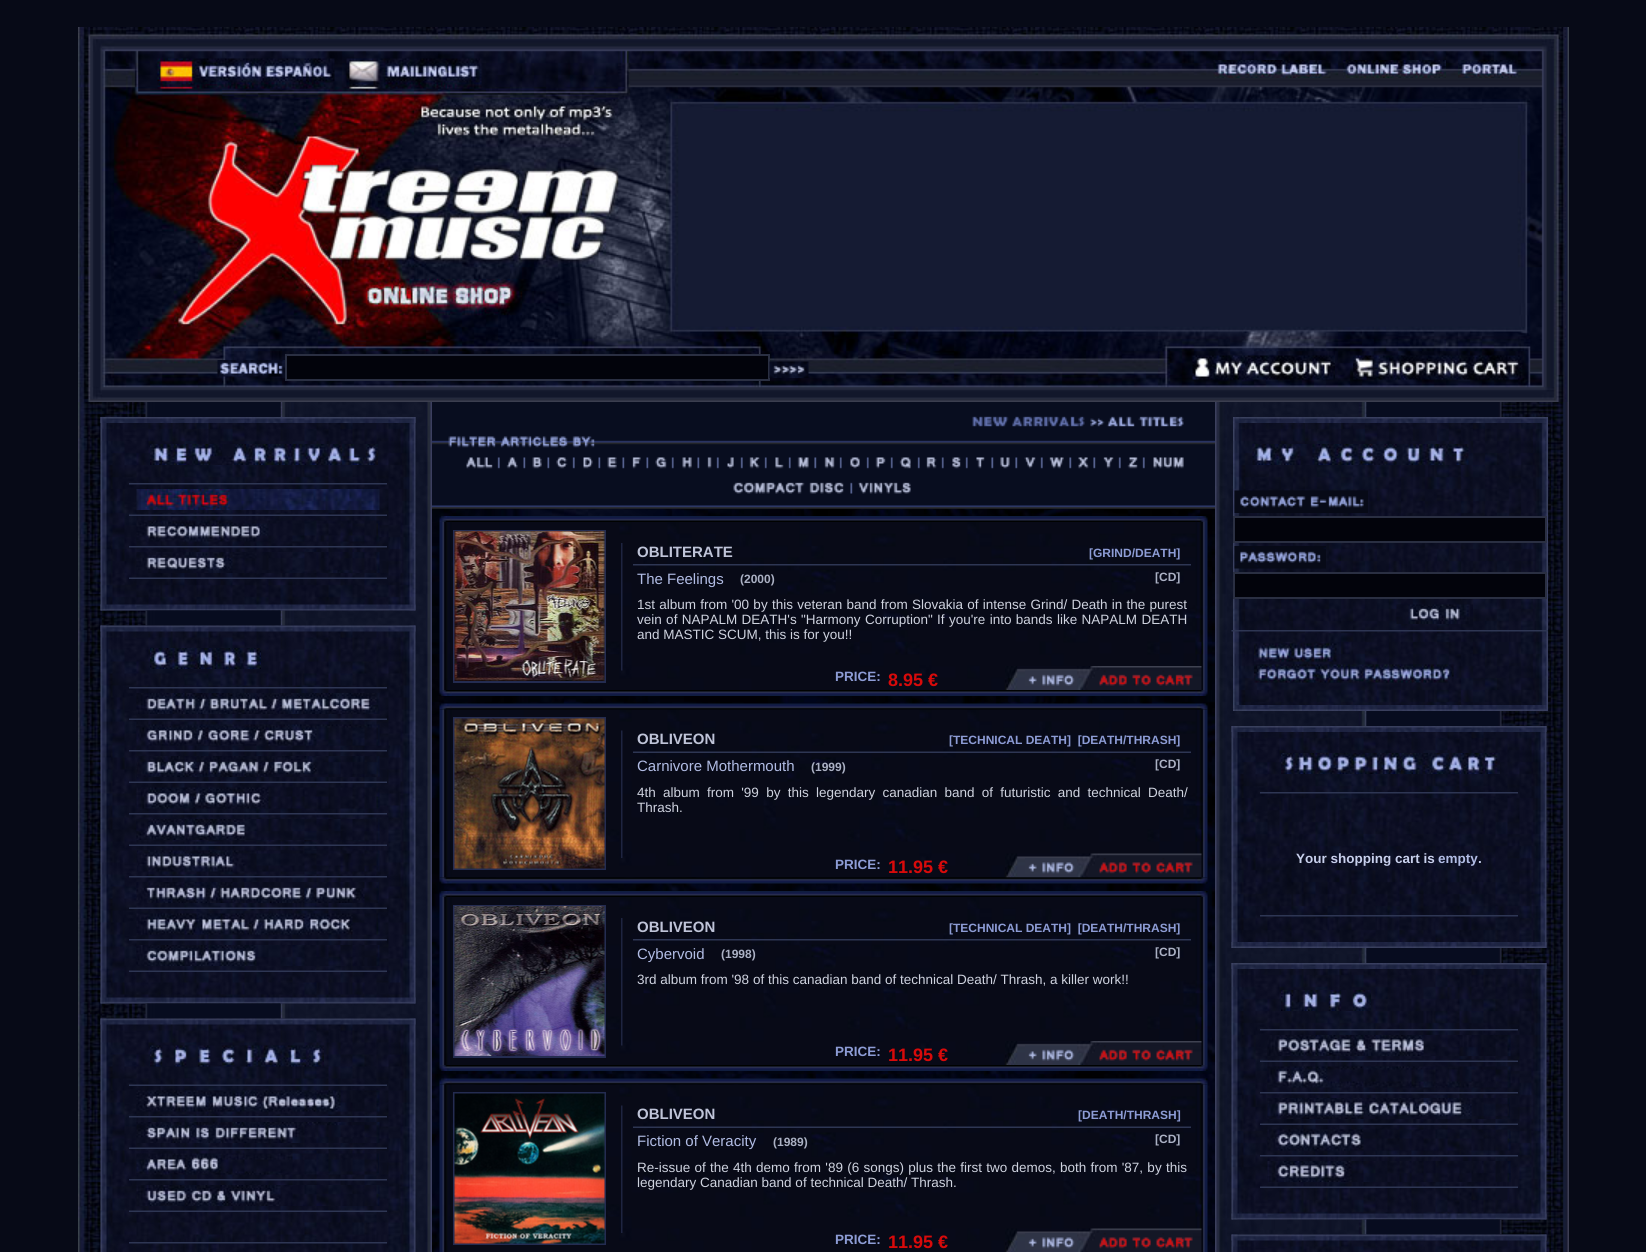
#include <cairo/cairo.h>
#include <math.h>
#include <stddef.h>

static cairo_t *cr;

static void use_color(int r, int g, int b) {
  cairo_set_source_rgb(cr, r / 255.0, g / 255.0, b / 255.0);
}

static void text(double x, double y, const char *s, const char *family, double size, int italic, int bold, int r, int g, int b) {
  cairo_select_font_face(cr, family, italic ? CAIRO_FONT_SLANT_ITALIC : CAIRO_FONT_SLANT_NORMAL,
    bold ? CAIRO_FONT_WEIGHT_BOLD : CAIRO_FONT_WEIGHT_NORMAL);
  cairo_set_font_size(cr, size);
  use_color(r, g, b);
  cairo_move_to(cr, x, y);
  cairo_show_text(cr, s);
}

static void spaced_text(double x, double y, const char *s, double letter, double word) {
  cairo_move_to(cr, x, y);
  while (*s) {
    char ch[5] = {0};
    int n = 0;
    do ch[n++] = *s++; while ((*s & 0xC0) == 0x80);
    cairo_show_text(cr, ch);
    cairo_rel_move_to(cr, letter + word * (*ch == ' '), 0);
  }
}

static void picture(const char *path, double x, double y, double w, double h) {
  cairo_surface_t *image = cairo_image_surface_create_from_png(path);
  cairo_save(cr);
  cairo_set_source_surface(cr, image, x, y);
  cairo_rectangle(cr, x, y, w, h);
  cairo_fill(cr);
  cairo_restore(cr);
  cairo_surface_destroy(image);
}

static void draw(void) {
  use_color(7, 10, 23);
  cairo_paint(cr);
  picture("img_01.png", 78, 27, 1491, 375);
  picture("img_02.png", 157, 58, 178, 31);
  picture("img_03.png", 346, 58, 136, 31);
  picture("img_04.png", 1213, 60, 118, 18);
  picture("img_05.png", 1343, 60, 103, 18);
  picture("img_06.png", 1458, 60, 63, 18);
  picture("img_07.png", 217, 360, 68, 17);
  use_color(2, 3, 11);
  cairo_rectangle(cr, 286, 355, 483, 25);
  cairo_fill_preserve(cr);
  use_color(42, 47, 66);
  cairo_stroke(cr);
  picture("img_08.png", 769, 361, 40, 17);
  picture("img_09.png", 1192, 355, 143, 25);
  picture("img_10.png", 1353, 355, 170, 25);
  picture("img_11.png", 78, 402, 354, 850);
  picture("img_12.png", 145, 402, 136, 15);
  picture("img_13.png", 100, 417, 316, 194);
  picture("img_14.png", 100, 417, 316, 6);
  picture("img_15.png", 150, 444, 228, 21);
  picture("img_16.png", 129, 483, 258, 2);
  picture("img_17.png", 136, 489, 244, 21);
  picture("img_18.png", 129, 514, 258, 2);
  picture("img_19.png", 136, 520, 244, 22);
  picture("img_20.png", 129, 546, 258, 2);
  picture("img_21.png", 136, 552, 244, 21);
  picture("img_22.png", 129, 577, 258, 2);
  picture("img_23.png", 100, 604, 316, 7);
  picture("img_24.png", 145, 610, 136, 16);
  picture("img_25.png", 100, 625, 316, 379);
  picture("img_26.png", 100, 625, 316, 7);
  picture("img_27.png", 150, 648, 111, 21);
  picture("img_28.png", 129, 687, 258, 2);
  picture("img_29.png", 136, 693, 244, 21);
  picture("img_30.png", 129, 718, 258, 2);
  picture("img_31.png", 136, 724, 244, 22);
  picture("img_32.png", 129, 750, 258, 2);
  picture("img_33.png", 137, 756, 243, 21);
  picture("img_34.png", 129, 781, 258, 2);
  picture("img_35.png", 136, 787, 244, 22);
  picture("img_36.png", 129, 813, 258, 2);
  picture("img_37.png", 136, 819, 244, 21);
  picture("img_38.png", 129, 844, 258, 2);
  picture("img_39.png", 137, 850, 243, 22);
  picture("img_40.png", 129, 876, 258, 2);
  picture("img_41.png", 136, 882, 243, 21);
  picture("img_42.png", 129, 907, 258, 2);
  picture("img_43.png", 136, 913, 244, 22);
  picture("img_44.png", 129, 939, 258, 2);
  picture("img_45.png", 136, 945, 244, 21);
  picture("img_46.png", 129, 970, 258, 2);
  picture("img_47.png", 100, 997, 316, 7);
  picture("img_48.png", 145, 1003, 136, 16);
  picture("img_49.png", 100, 1018, 316, 234);
  picture("img_50.png", 100, 1018, 316, 7);
  picture("img_51.png", 150, 1045, 174, 22);
  picture("img_52.png", 129, 1084, 258, 2);
  picture("img_53.png", 136, 1090, 244, 22);
  picture("img_54.png", 129, 1116, 258, 2);
  picture("img_55.png", 136, 1122, 244, 21);
  picture("img_56.png", 129, 1147, 258, 2);
  picture("img_57.png", 136, 1153, 243, 22);
  picture("img_58.png", 129, 1179, 258, 2);
  picture("img_59.png", 136, 1185, 244, 21);
  picture("img_60.png", 129, 1210, 258, 2);
  picture("img_61.png", 129, 1242, 258, 2);
  picture("img_62.png", 432, 508, 783, 744);
  picture("img_63.png", 432, 402, 783, 107);
  cairo_set_source_rgba(cr, 0.157, 0.157, 0.165, 0.5);
  cairo_rectangle(cr, 432, 508, 783, 1);
  cairo_fill(cr);
  picture("img_64.png", 972, 416, 113, 11);
  picture("img_65.png", 1090, 416, 94, 11);
  picture("img_66.png", 448, 436, 147, 12);
  picture("img_67.png", 466, 457, 27, 12);
  picture("img_68.png", 497, 457, 3, 12);
  picture("img_69.png", 506, 457, 12, 12);
  picture("img_70.png", 523, 457, 3, 12);
  picture("img_71.png", 532, 457, 10, 12);
  picture("img_70.png", 547, 457, 3, 12);
  picture("img_72.png", 556, 457, 12, 12);
  picture("img_68.png", 572, 457, 3, 12);
  picture("img_73.png", 583, 457, 10, 12);
  picture("img_70.png", 598, 457, 3, 12);
  picture("img_74.png", 607, 457, 10, 12);
  picture("img_70.png", 622, 457, 3, 12);
  picture("img_75.png", 632, 457, 9, 12);
  picture("img_70.png", 646, 457, 3, 12);
  picture("img_76.png", 655, 457, 12, 12);
  picture("img_77.png", 671, 457, 3, 12);
  picture("img_78.png", 682, 457, 10, 12);
  picture("img_70.png", 697, 457, 3, 12);
  picture("img_79.png", 707, 457, 5, 12);
  picture("img_68.png", 716, 457, 3, 12);
  picture("img_80.png", 727, 457, 7, 12);
  picture("img_68.png", 740, 457, 3, 12);
  picture("img_81.png", 749, 457, 11, 12);
  picture("img_77.png", 764, 457, 3, 12);
  picture("img_82.png", 775, 457, 9, 12);
  picture("img_77.png", 788, 457, 3, 12);
  picture("img_83.png", 797, 457, 12, 12);
  picture("img_84.png", 814, 457, 3, 12);
  picture("img_85.png", 824, 457, 11, 12);
  picture("img_77.png", 839, 457, 3, 12);
  picture("img_86.png", 850, 457, 10, 12);
  picture("img_77.png", 866, 457, 3, 12);
  picture("img_87.png", 875, 457, 11, 12);
  picture("img_77.png", 890, 457, 3, 12);
  picture("img_88.png", 899, 457, 12, 12);
  picture("img_77.png", 917, 457, 3, 12);
  picture("img_89.png", 926, 457, 11, 12);
  picture("img_77.png", 941, 457, 3, 12);
  picture("img_90.png", 952, 457, 9, 12);
  picture("img_77.png", 965, 457, 3, 12);
  picture("img_91.png", 976, 457, 9, 12);
  picture("img_84.png", 991, 457, 3, 12);
  picture("img_92.png", 1000, 457, 10, 12);
  picture("img_84.png", 1015, 457, 3, 12);
  picture("img_93.png", 1024, 457, 12, 12);
  picture("img_68.png", 1040, 457, 3, 12);
  picture("img_94.png", 1049, 457, 15, 12);
  picture("img_84.png", 1069, 457, 3, 12);
  picture("img_95.png", 1078, 457, 11, 12);
  picture("img_84.png", 1093, 457, 3, 12);
  picture("img_96.png", 1103, 457, 11, 12);
  picture("img_68.png", 1118, 457, 3, 12);
  picture("img_97.png", 1127, 457, 11, 12);
  picture("img_68.png", 1142, 457, 3, 12);
  picture("img_98.png", 1153, 457, 31, 12);
  picture("img_99.png", 733, 482, 111, 12);
  picture("img_100.png", 850, 482, 3, 12);
  picture("img_101.png", 858, 482, 53, 12);
  picture("img_102.png", 439, 516, 769, 6);
  picture("img_103.png", 439, 522, 769, 168);
  cairo_rectangle(cr, 454, 531, 151, 151);
  use_color(36, 44, 81);
  cairo_stroke(cr);
  picture("img_104.png", 454, 531, 151, 150);
  picture("img_105.png", 621, 543, 2, 128);
  picture("img_106.png", 633, 564, 558, 2);
  picture("img_107.png", 1005, 666, 197, 24);
  picture("img_108.png", 1025, 670, 52, 16);
  picture("img_109.png", 1095, 670, 98, 16);
  picture("img_110.png", 439, 690, 769, 6);
  picture("img_111.png", 439, 703, 769, 7);
  picture("img_112.png", 439, 709, 769, 169);
  cairo_rectangle(cr, 454, 718, 151, 151);
  cairo_stroke(cr);
  picture("img_113.png", 454, 718, 151, 151);
  picture("img_114.png", 621, 730, 2, 128);
  picture("img_115.png", 633, 751, 558, 2);
  picture("img_116.png", 1005, 853, 197, 25);
  picture("img_117.png", 1025, 858, 52, 16);
  picture("img_118.png", 1095, 858, 98, 16);
  picture("img_119.png", 439, 877, 769, 7);
  picture("img_120.png", 439, 891, 769, 6);
  picture("img_121.png", 439, 897, 769, 168);
  cairo_rectangle(cr, 454, 906, 151, 151);
  cairo_stroke(cr);
  picture("img_122.png", 454, 906, 151, 150);
  picture("img_105.png", 621, 918, 2, 128);
  picture("img_106.png", 633, 939, 558, 2);
  picture("img_107.png", 1005, 1041, 197, 24);
  picture("img_108.png", 1025, 1045, 52, 16);
  picture("img_109.png", 1095, 1045, 98, 16);
  picture("img_123.png", 439, 1065, 769, 6);
  picture("img_124.png", 439, 1078, 769, 7);
  picture("img_125.png", 439, 1084, 769, 168);
  cairo_rectangle(cr, 454, 1093, 151, 151);
  cairo_stroke(cr);
  picture("img_126.png", 454, 1093, 151, 151);
  picture("img_114.png", 621, 1105, 2, 128);
  picture("img_115.png", 633, 1126, 558, 2);
  picture("img_127.png", 1005, 1228, 197, 24);
  picture("img_117.png", 1025, 1233, 52, 16);
  picture("img_118.png", 1095, 1233, 98, 16);
  picture("img_128.png", 1215, 402, 354, 850);
  picture("img_129.png", 1366, 402, 136, 15);
  picture("img_130.png", 1233, 423, 315, 288);
  picture("img_131.png", 1233, 417, 315, 6);
  picture("img_132.png", 1252, 444, 217, 21);
  picture("img_133.png", 1234, 490, 134, 23);
  use_color(2, 3, 11);
  cairo_rectangle(cr, 1234, 517, 312, 25);
  cairo_fill_preserve(cr);
  use_color(42, 47, 66);
  cairo_stroke(cr);
  picture("img_134.png", 1234, 546, 92, 23);
  use_color(2, 3, 11);
  cairo_rectangle(cr, 1234, 573, 312, 25);
  cairo_fill_preserve(cr);
  use_color(42, 47, 66);
  cairo_stroke(cr);
  picture("img_135.png", 1396, 604, 77, 20);
  picture("img_136.png", 1231, 630, 317, 2);
  picture("img_137.png", 1254, 643, 83, 19);
  picture("img_138.png", 1254, 664, 200, 19);
  picture("img_139.png", 1233, 705, 314, 6);
  picture("img_140.png", 1366, 711, 136, 15);
  picture("img_141.png", 1231, 726, 316, 222);
  picture("img_142.png", 1231, 726, 316, 6);
  picture("img_143.png", 1281, 753, 219, 21);
  picture("img_16.png", 1260, 792, 258, 2);
  picture("img_144.png", 1260, 915, 258, 2);
  picture("img_145.png", 1231, 942, 316, 6);
  picture("img_146.png", 1366, 948, 136, 15);
  picture("img_147.png", 1231, 963, 316, 257);
  picture("img_148.png", 1231, 963, 316, 6);
  picture("img_149.png", 1281, 990, 90, 21);
  picture("img_150.png", 1260, 1029, 258, 2);
  picture("img_151.png", 1267, 1035, 244, 21);
  picture("img_152.png", 1260, 1060, 258, 2);
  picture("img_153.png", 1267, 1066, 244, 22);
  picture("img_154.png", 1260, 1092, 258, 2);
  picture("img_155.png", 1267, 1098, 243, 21);
  picture("img_156.png", 1260, 1123, 258, 2);
  picture("img_157.png", 1267, 1129, 244, 22);
  picture("img_158.png", 1260, 1155, 258, 2);
  picture("img_159.png", 1267, 1161, 244, 21);
  picture("img_160.png", 1260, 1186, 258, 2);
  picture("img_161.png", 1231, 1213, 316, 7);
  picture("img_162.png", 1366, 1219, 136, 16);
  picture("img_163.png", 1231, 1234, 316, 18);
  picture("img_164.png", 1231, 1234, 316, 7);
  text(637, 557, "OBLITERATE", "Liberation Sans", 15, 0, 1, 191, 196, 216);
  text(1089, 557, "[GRIND/DEATH]", "Liberation Sans", 12, 0, 1, 141, 156, 213);
  text(637, 584, "The Feelings", "Liberation Sans", 15, 0, 0, 177, 188, 228);
  text(740, 583, "(2000)", "Liberation Sans", 12, 0, 1, 171, 177, 196);
  text(1155, 581, "[CD]", "Liberation Sans", 12, 0, 1, 171, 177, 196);
  cairo_select_font_face(cr, "Liberation Sans", CAIRO_FONT_SLANT_NORMAL, CAIRO_FONT_WEIGHT_NORMAL);
  cairo_set_font_size(cr, 13.5);
  use_color(207, 211, 223);
  spaced_text(637, 609, "1st album from '00 by this veteran band from Slovakia of intense Grind/ Death in the purest", 0, 0.5);
  spaced_text(637, 624, "vein of NAPALM DEATH's \"Harmony Corruption\" If you're into bands like NAPALM DEATH", 0, 0.6);
  text(637, 639, "and MASTIC SCUM, this is for you!!", "Liberation Sans", 13.5, 0, 0, 207, 211, 223);
  text(835, 681, "PRICE:", "Liberation Sans", 13.5, 0, 1, 141, 156, 213);
  text(888, 686, "8.95 €", "Liberation Sans", 18, 0, 1, 216, 10, 10);
  text(637, 744, "OBLIVEON", "Liberation Sans", 15, 0, 1, 191, 196, 216);
  text(949, 744, "[TECHNICAL DEATH]  [DEATH/THRASH]", "Liberation Sans", 12, 0, 1, 141, 156, 213);
  text(637, 771, "Carnivore Mothermouth", "Liberation Sans", 15, 0, 0, 177, 188, 228);
  text(811, 771, "(1999)", "Liberation Sans", 12, 0, 1, 171, 177, 196);
  text(1155, 768, "[CD]", "Liberation Sans", 12, 0, 1, 171, 177, 196);
  cairo_select_font_face(cr, "Liberation Sans", CAIRO_FONT_SLANT_NORMAL, CAIRO_FONT_WEIGHT_NORMAL);
  cairo_set_font_size(cr, 13.5);
  use_color(207, 211, 223);
  spaced_text(637, 797, "4th album from '99 by this legendary canadian band of futuristic and technical Death/", 0, 3.5);
  text(637, 812, "Thrash.", "Liberation Sans", 13.5, 0, 0, 207, 211, 223);
  text(835, 869, "PRICE:", "Liberation Sans", 13.5, 0, 1, 141, 156, 213);
  text(888, 873, "11.95 €", "Liberation Sans", 18, 0, 1, 216, 10, 10);
  text(637, 932, "OBLIVEON", "Liberation Sans", 15, 0, 1, 191, 196, 216);
  text(949, 932, "[TECHNICAL DEATH]  [DEATH/THRASH]", "Liberation Sans", 12, 0, 1, 141, 156, 213);
  text(637, 959, "Cybervoid", "Liberation Sans", 15, 0, 0, 177, 188, 228);
  text(721, 958, "(1998)", "Liberation Sans", 12, 0, 1, 171, 177, 196);
  text(1155, 956, "[CD]", "Liberation Sans", 12, 0, 1, 171, 177, 196);
  text(637, 984, "3rd album from '98 of this canadian band of technical Death/ Thrash, a killer work!!", "Liberation Sans", 13.5, 0, 0, 207, 211, 223);
  text(835, 1056, "PRICE:", "Liberation Sans", 13.5, 0, 1, 141, 156, 213);
  text(888, 1061, "11.95 €", "Liberation Sans", 18, 0, 1, 216, 10, 10);
  text(637, 1119, "OBLIVEON", "Liberation Sans", 15, 0, 1, 191, 196, 216);
  text(1078, 1119, "[DEATH/THRASH]", "Liberation Sans", 12, 0, 1, 141, 156, 213);
  text(637, 1146, "Fiction of Veracity", "Liberation Sans", 15, 0, 0, 177, 188, 228);
  text(773, 1146, "(1989)", "Liberation Sans", 12, 0, 1, 171, 177, 196);
  text(1155, 1143, "[CD]", "Liberation Sans", 12, 0, 1, 171, 177, 196);
  cairo_select_font_face(cr, "Liberation Sans", CAIRO_FONT_SLANT_NORMAL, CAIRO_FONT_WEIGHT_NORMAL);
  cairo_set_font_size(cr, 13.5);
  use_color(207, 211, 223);
  spaced_text(637, 1172, "Re-issue of the 4th demo from '89 (6 songs) plus the first two demos, both from '87, by this", 0, 0.5);
  text(637, 1187, "legendary Canadian band of technical Death/ Thrash.", "Liberation Sans", 13.5, 0, 0, 207, 211, 223);
  text(835, 1244, "PRICE:", "Liberation Sans", 13.5, 0, 1, 141, 156, 213);
  text(888, 1248, "11.95 €", "Liberation Sans", 18, 0, 1, 216, 10, 10);
  text(1296, 863, "Your shopping cart is", "Liberation Sans", 13.5, 0, 1, 200, 208, 236);
  text(1438, 863, "empty", "Liberation Sans", 13.5, 0, 1, 177, 188, 228);
  text(1478, 863, ".", "Liberation Sans", 13.5, 0, 1, 200, 208, 236);
}

int main(void) {
  cairo_surface_t *surface = cairo_image_surface_create(CAIRO_FORMAT_RGB24, 1646, 1252);
  cr = cairo_create(surface);
  cairo_font_options_t *options = cairo_font_options_create();
  cairo_font_options_set_hint_metrics(options, CAIRO_HINT_METRICS_OFF);
  cairo_font_options_set_hint_style(options, CAIRO_HINT_STYLE_NONE);
  cairo_set_font_options(cr, options);
  cairo_set_miter_limit(cr, 4);
  draw();
  cairo_surface_write_to_png(surface, "out.png");
  cairo_font_options_destroy(options);
  cairo_destroy(cr);
  cairo_surface_destroy(surface);
  return 0;
}
